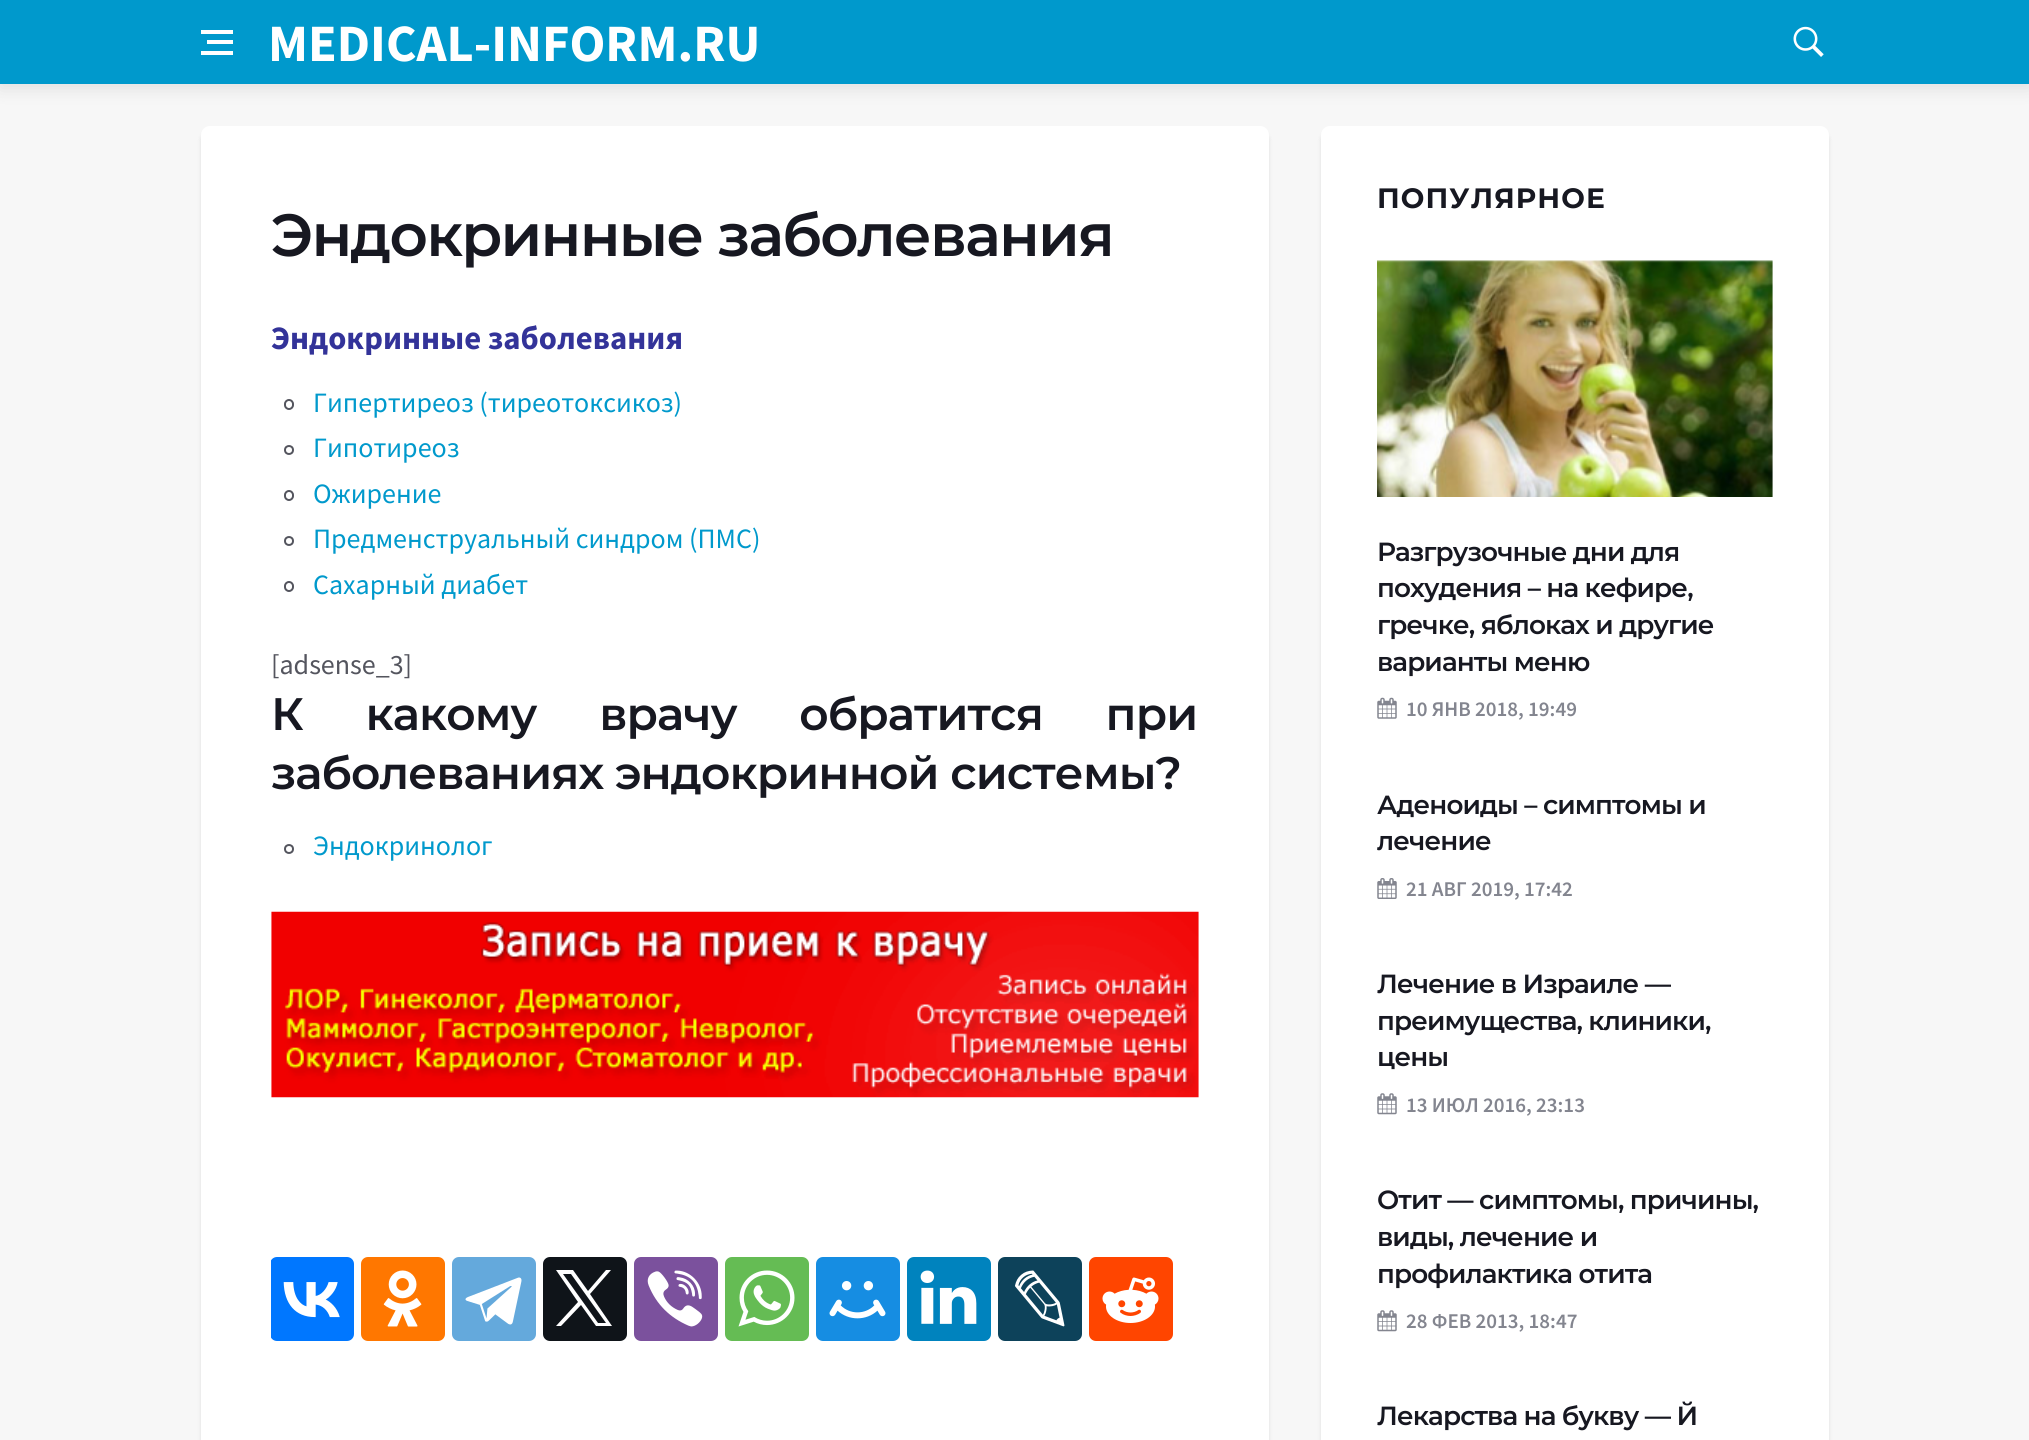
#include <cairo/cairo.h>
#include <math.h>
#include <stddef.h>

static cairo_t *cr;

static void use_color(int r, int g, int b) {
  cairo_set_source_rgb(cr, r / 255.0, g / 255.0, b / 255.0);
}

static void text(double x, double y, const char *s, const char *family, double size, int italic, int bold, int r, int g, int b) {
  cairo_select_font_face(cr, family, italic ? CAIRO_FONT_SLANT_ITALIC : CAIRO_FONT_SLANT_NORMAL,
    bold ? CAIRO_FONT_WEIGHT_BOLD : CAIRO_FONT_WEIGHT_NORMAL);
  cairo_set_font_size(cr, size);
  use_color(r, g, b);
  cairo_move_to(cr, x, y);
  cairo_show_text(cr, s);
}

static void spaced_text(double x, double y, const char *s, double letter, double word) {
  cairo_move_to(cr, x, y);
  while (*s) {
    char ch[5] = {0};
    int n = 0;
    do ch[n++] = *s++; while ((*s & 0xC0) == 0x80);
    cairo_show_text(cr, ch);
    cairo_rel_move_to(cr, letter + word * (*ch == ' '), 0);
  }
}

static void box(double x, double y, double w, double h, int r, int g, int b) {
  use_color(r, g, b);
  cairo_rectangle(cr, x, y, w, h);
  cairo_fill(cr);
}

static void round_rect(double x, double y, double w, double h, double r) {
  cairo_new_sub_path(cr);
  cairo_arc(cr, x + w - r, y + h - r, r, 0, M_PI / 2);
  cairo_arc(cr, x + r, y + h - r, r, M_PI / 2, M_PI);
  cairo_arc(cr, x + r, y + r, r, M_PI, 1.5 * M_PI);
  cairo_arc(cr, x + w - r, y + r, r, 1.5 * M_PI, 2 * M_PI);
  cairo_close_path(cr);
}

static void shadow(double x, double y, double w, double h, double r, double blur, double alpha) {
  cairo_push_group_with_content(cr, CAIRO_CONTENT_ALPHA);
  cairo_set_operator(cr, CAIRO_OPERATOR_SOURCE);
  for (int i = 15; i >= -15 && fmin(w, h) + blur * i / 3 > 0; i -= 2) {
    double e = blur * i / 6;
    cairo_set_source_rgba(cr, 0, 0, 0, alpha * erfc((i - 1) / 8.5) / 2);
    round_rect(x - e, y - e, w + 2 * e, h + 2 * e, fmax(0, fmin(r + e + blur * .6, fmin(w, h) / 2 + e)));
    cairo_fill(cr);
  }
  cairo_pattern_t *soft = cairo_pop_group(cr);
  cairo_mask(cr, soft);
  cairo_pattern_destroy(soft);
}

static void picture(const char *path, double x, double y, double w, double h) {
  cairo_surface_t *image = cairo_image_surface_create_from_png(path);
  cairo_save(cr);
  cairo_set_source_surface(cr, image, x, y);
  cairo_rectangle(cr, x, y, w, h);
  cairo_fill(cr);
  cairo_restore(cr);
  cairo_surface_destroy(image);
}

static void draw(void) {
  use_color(247, 247, 247);
  cairo_paint(cr);
  use_color(0, 0, 0);
  shadow(0, 4, 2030, 84, 0, 9, 0.1);
  box(0, 0, 2029, 84, 0, 153, 204);
  box(207, 40, 26, 4, 255, 255, 255);
  box(201, 30, 32, 4, 255, 255, 255);
  box(201, 51, 32, 4, 255, 255, 255);
  picture("img_01.png", 1793, 26, 31, 31);
  use_color(0, 0, 0);
  shadow(201, 131, 1068, 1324, 9, 2, 0.1);
  use_color(255, 255, 255);
  round_rect(201, 126, 1068, 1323, 9);
  cairo_fill(cr);
  round_rect(285, 400, 8, 9, 4);
  use_color(84, 85, 94);
  cairo_stroke(cr);
  cairo_arc(cr, 289, 450, 4, 0, 2 * M_PI);
  cairo_stroke(cr);
  round_rect(285, 491, 8, 9, 4);
  cairo_stroke(cr);
  cairo_arc(cr, 289, 541, 4, 0, 2 * M_PI);
  cairo_stroke(cr);
  round_rect(285, 582, 8, 9, 4);
  cairo_stroke(cr);
  cairo_arc(cr, 289, 849, 4, 0, 2 * M_PI);
  cairo_stroke(cr);
  picture("img_02.png", 271, 911, 928, 187);
  cairo_save(cr);
  cairo_rectangle(cr, 271, 196, 928, 1215);
  cairo_clip(cr);
  use_color(0, 119, 255);
  round_rect(270, 1257, 84, 84, 7);
  cairo_fill(cr);
  cairo_restore(cr);
  picture("img_03.png", 283, 1282, 57, 36);
  use_color(255, 119, 0);
  round_rect(361, 1257, 84, 84, 7);
  cairo_fill(cr);
  picture("img_04.png", 383, 1270, 39, 57);
  use_color(100, 169, 220);
  round_rect(452, 1257, 84, 84, 7);
  cairo_fill(cr);
  picture("img_05.png", 465, 1277, 57, 48);
  use_color(15, 20, 25);
  round_rect(543, 1257, 84, 84, 7);
  cairo_fill(cr);
  use_color(255, 255, 255);
  cairo_new_path(cr);
  cairo_move_to(cr, 590, 1294);
  cairo_line_to(cr, 611, 1270);
  cairo_line_to(cr, 606, 1270);
  cairo_line_to(cr, 588, 1291);
  cairo_line_to(cr, 573, 1270);
  cairo_line_to(cr, 556, 1270);
  cairo_line_to(cr, 578, 1302);
  cairo_line_to(cr, 556, 1326);
  cairo_line_to(cr, 561, 1326);
  cairo_line_to(cr, 581, 1305);
  cairo_line_to(cr, 596, 1326);
  cairo_line_to(cr, 612, 1326);
  cairo_close_path(cr);
  cairo_move_to(cr, 583, 1302);
  cairo_line_to(cr, 563, 1274);
  cairo_line_to(cr, 571, 1274);
  cairo_line_to(cr, 606, 1323);
  cairo_line_to(cr, 598, 1323);
  cairo_close_path(cr);
  cairo_fill(cr);
  use_color(123, 81, 157);
  round_rect(634, 1257, 84, 84, 7);
  cairo_fill(cr);
  picture("img_06.png", 647, 1270, 56, 57);
  use_color(101, 188, 84);
  round_rect(725, 1257, 84, 84, 7);
  cairo_fill(cr);
  picture("img_07.png", 738, 1270, 57, 57);
  use_color(22, 141, 226);
  round_rect(816, 1257, 84, 84, 7);
  cairo_fill(cr);
  picture("img_08.png", 829, 1281, 57, 38);
  use_color(0, 131, 190);
  round_rect(907, 1257, 84, 84, 7);
  cairo_fill(cr);
  picture("img_09.png", 920, 1270, 57, 54);
  use_color(13, 66, 90);
  round_rect(998, 1257, 84, 84, 7);
  cairo_fill(cr);
  picture("img_10.png", 1015, 1270, 50, 57);
  use_color(255, 69, 0);
  round_rect(1089, 1257, 84, 84, 7);
  cairo_fill(cr);
  picture("img_11.png", 1102, 1277, 57, 46);
  use_color(0, 0, 0);
  shadow(1321, 131, 508, 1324, 9, 2, 0.1);
  use_color(255, 255, 255);
  round_rect(1321, 126, 508, 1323, 9);
  cairo_fill(cr);
  box(1377, 261, 396, 236, 247, 247, 247);
  picture("img_12.png", 1377, 260, 396, 237);
  picture("img_13.png", 1377, 697, 20, 22);
  picture("img_14.png", 1377, 878, 20, 21);
  picture("img_15.png", 1377, 1093, 20, 22);
  picture("img_15.png", 1377, 1310, 20, 22);
  text(268, 61, "MEDICAL-INFORM.RU", "Source Sans Pro", 52.5, 0, 1, 255, 255, 255);
  cairo_select_font_face(cr, "Montserrat SemiBold", CAIRO_FONT_SLANT_NORMAL, CAIRO_FONT_WEIGHT_NORMAL);
  cairo_set_font_size(cr, 59.5);
  use_color(23, 24, 33);
  spaced_text(271, 256, "Эндокринные заболевания", -1.75, 0);
  text(271, 349, "Эндокринные заболевания", "Source Sans Pro", 32.7, 0, 1, 51, 51, 153);
  text(313, 412, "Гипертиреоз (тиреотоксикоз)", "Source Sans Pro", 28, 0, 0, 0, 153, 204);
  text(313, 457, "Гипотиреоз", "Source Sans Pro", 28, 0, 0, 0, 153, 204);
  text(313, 503, "Ожирение", "Source Sans Pro", 28, 0, 0, 0, 153, 204);
  text(313, 548, "Предменструальный синдром (ПМС)", "Source Sans Pro", 28, 0, 0, 0, 153, 204);
  text(313, 594, "Сахарный диабет", "Source Sans Pro", 28, 0, 0, 0, 153, 204);
  text(271, 674, "[adsense_3]", "Source Sans Pro", 28, 0, 0, 84, 85, 94);
  cairo_select_font_face(cr, "Montserrat SemiBold", CAIRO_FONT_SLANT_NORMAL, CAIRO_FONT_WEIGHT_NORMAL);
  cairo_set_font_size(cr, 45.5);
  use_color(23, 24, 33);
  spaced_text(271, 730, "К какому врачу обратится при", -0.9, 51);
  spaced_text(271, 789, "заболеваниях эндокринной системы?", -0.9, 0);
  text(313, 855, "Эндокринолог", "Source Sans Pro", 28, 0, 0, 0, 153, 204);
  cairo_select_font_face(cr, "Montserrat", CAIRO_FONT_SLANT_NORMAL, CAIRO_FONT_WEIGHT_BOLD);
  use_color(23, 24, 33);
  spaced_text(1377, 208, "ПОПУЛЯРНОЕ", 1.1, 0);
  cairo_select_font_face(cr, "Montserrat SemiBold", CAIRO_FONT_SLANT_NORMAL, CAIRO_FONT_WEIGHT_NORMAL);
  cairo_set_font_size(cr, 26.25);
  spaced_text(1377, 561, "Разгрузочные дни для", -0.9, 0);
  spaced_text(1377, 597, "похудения – на кефире,", -0.9, 0);
  spaced_text(1377, 634, "гречке, яблоках и другие", -0.9, 0);
  spaced_text(1377, 671, "варианты меню", -0.9, 0);
  text(1406, 716, "10 ЯНВ 2018, 19:49", "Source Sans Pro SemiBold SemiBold", 21, 0, 0, 131, 133, 143);
  cairo_select_font_face(cr, "Montserrat SemiBold", CAIRO_FONT_SLANT_NORMAL, CAIRO_FONT_WEIGHT_NORMAL);
  cairo_set_font_size(cr, 26.25);
  use_color(23, 24, 33);
  spaced_text(1377, 814, "Аденоиды – симптомы и", -0.9, 0);
  spaced_text(1377, 850, "лечение", -0.9, 0);
  text(1406, 896, "21 АВГ 2019, 17:42", "Source Sans Pro SemiBold SemiBold", 21, 0, 0, 131, 133, 143);
  cairo_select_font_face(cr, "Montserrat SemiBold", CAIRO_FONT_SLANT_NORMAL, CAIRO_FONT_WEIGHT_NORMAL);
  cairo_set_font_size(cr, 26.25);
  use_color(23, 24, 33);
  spaced_text(1377, 993, "Лечение в Израиле —", -0.9, 0);
  spaced_text(1377, 1030, "преимущества, клиники,", -0.9, 0);
  spaced_text(1377, 1066, "цены", -0.9, 0);
  text(1406, 1112, "13 ИЮЛ 2016, 23:13", "Source Sans Pro SemiBold SemiBold", 21, 0, 0, 131, 133, 143);
  cairo_select_font_face(cr, "Montserrat SemiBold", CAIRO_FONT_SLANT_NORMAL, CAIRO_FONT_WEIGHT_NORMAL);
  cairo_set_font_size(cr, 26.25);
  use_color(23, 24, 33);
  spaced_text(1377, 1209, "Отит — симптомы, причины,", -0.9, 0);
  spaced_text(1377, 1246, "виды, лечение и", -0.9, 0);
  spaced_text(1377, 1283, "профилактика отита", -0.9, 0);
  text(1406, 1328, "28 ФЕВ 2013, 18:47", "Source Sans Pro SemiBold SemiBold", 21, 0, 0, 131, 133, 143);
  cairo_select_font_face(cr, "Montserrat SemiBold", CAIRO_FONT_SLANT_NORMAL, CAIRO_FONT_WEIGHT_NORMAL);
  cairo_set_font_size(cr, 26.25);
  use_color(23, 24, 33);
  spaced_text(1377, 1425, "Лекарства на букву — Й", -0.9, 0);
}

int main(void) {
  cairo_surface_t *surface = cairo_image_surface_create(CAIRO_FORMAT_RGB24, 2029, 1440);
  cr = cairo_create(surface);
  cairo_font_options_t *options = cairo_font_options_create();
  cairo_font_options_set_hint_metrics(options, CAIRO_HINT_METRICS_OFF);
  cairo_font_options_set_hint_style(options, CAIRO_HINT_STYLE_NONE);
  cairo_set_font_options(cr, options);
  cairo_set_miter_limit(cr, 4);
  draw();
  cairo_surface_write_to_png(surface, "out.png");
  cairo_font_options_destroy(options);
  cairo_destroy(cr);
  cairo_surface_destroy(surface);
  return 0;
}
